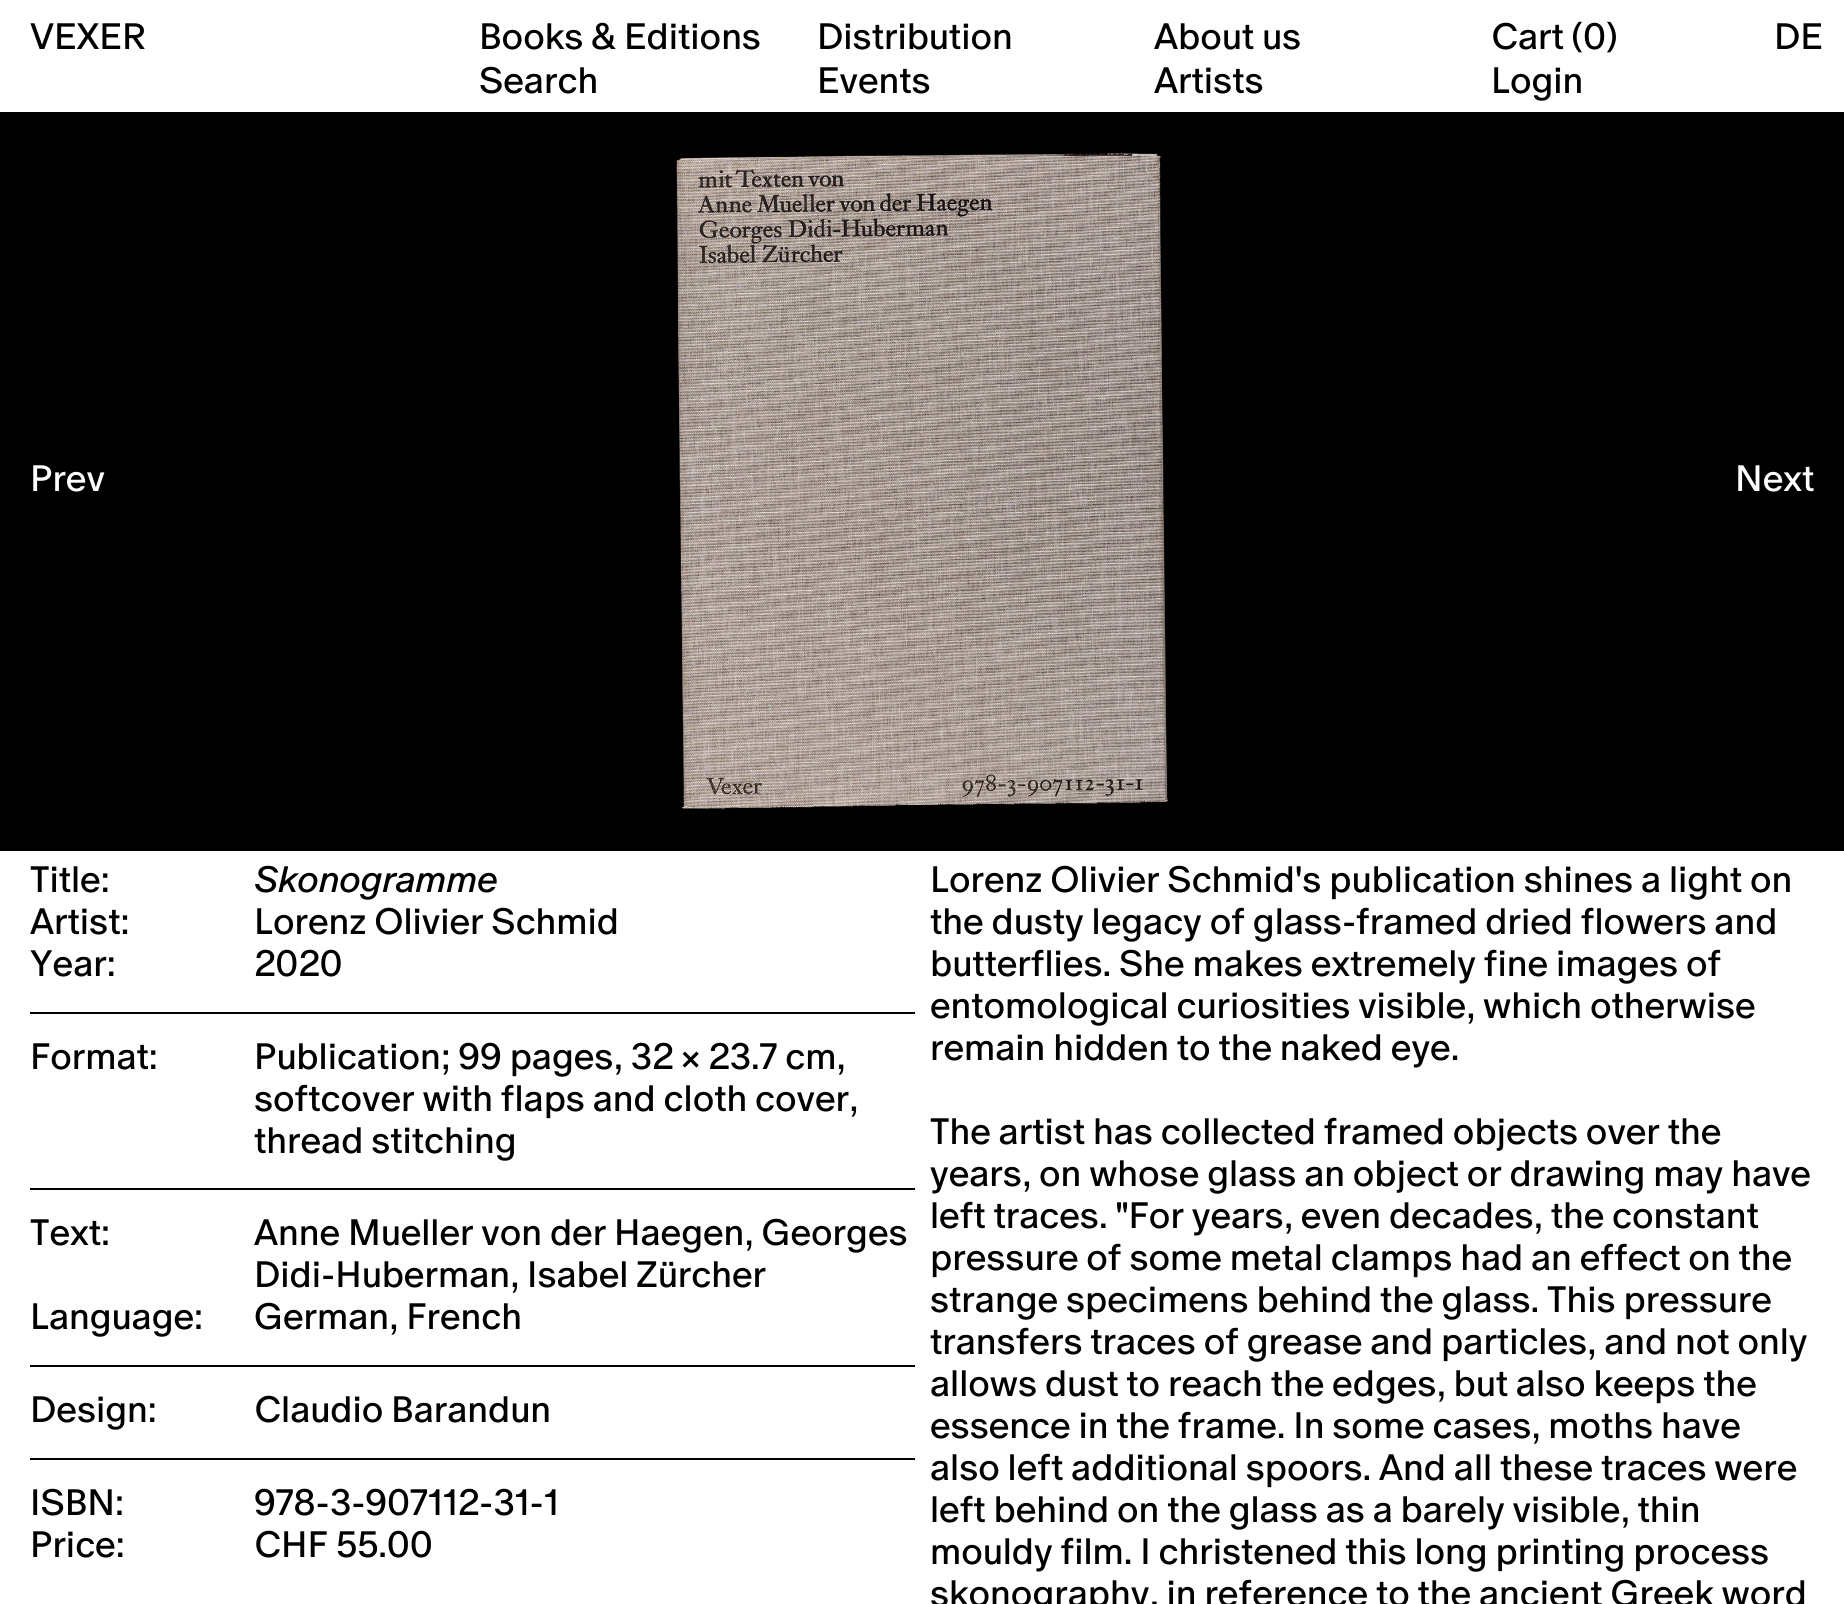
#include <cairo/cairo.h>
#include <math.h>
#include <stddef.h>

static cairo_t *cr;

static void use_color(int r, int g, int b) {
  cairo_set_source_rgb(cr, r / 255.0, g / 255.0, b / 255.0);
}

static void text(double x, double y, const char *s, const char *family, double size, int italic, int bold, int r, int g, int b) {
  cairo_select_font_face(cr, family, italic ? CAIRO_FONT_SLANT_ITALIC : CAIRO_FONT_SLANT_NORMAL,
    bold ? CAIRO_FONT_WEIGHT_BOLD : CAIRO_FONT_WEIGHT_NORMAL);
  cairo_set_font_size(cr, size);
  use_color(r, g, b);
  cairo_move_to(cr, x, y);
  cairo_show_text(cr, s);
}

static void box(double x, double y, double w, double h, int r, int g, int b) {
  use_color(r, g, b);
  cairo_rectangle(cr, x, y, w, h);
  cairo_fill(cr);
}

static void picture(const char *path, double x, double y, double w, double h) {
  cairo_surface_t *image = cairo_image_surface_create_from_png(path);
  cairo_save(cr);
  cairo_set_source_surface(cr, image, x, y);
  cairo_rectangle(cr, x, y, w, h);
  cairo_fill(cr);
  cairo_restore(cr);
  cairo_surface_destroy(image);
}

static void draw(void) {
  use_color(255, 255, 255);
  cairo_paint(cr);
  box(0, 112, 1844, 739, 0, 0, 0);
  picture("img_01.png", 676, 153, 492, 657);
  box(30, 1012, 885, 2, 0, 0, 0);
  box(30, 1188, 885, 2, 0, 0, 0);
  box(30, 1365, 885, 2, 0, 0, 0);
  box(30, 1458, 885, 2, 0, 0, 0);
  text(30, 49, "VEXER", "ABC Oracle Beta", 36.75, 0, 0, 0, 0, 0);
  text(479, 49, "Books & Editions", "ABC Oracle Beta", 36.75, 0, 0, 0, 0, 0);
  text(817, 49, "Distribution", "ABC Oracle Beta", 36.75, 0, 0, 0, 0, 0);
  text(1154, 49, "About us", "ABC Oracle Beta", 36.75, 0, 0, 0, 0, 0);
  text(1491, 49, "Cart (0)", "ABC Oracle Beta", 36.75, 0, 0, 0, 0, 0);
  text(1774, 49, "DE", "ABC Oracle Beta", 36.75, 0, 0, 0, 0, 0);
  text(479, 93, "Search", "ABC Oracle Beta", 36.75, 0, 0, 0, 0, 0);
  text(817, 93, "Events", "ABC Oracle Beta", 36.75, 0, 0, 0, 0, 0);
  text(1154, 93, "Artists", "ABC Oracle Beta", 36.75, 0, 0, 0, 0, 0);
  text(1491, 93, "Login", "ABC Oracle Beta", 36.75, 0, 0, 0, 0, 0);
  text(30, 491, "Prev", "ABC Oracle Beta", 36.75, 0, 0, 255, 255, 255);
  text(1735, 491, "Next", "ABC Oracle Beta", 36.75, 0, 0, 255, 255, 255);
  text(30, 892, "Title:", "ABC Oracle Beta", 36.75, 0, 0, 0, 0, 0);
  text(254, 892, "Skonogramme", "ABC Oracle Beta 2", 36.75, 0, 0, 0, 0, 0);
  text(30, 934, "Artist:", "ABC Oracle Beta", 36.75, 0, 0, 0, 0, 0);
  text(254, 934, "Lorenz Olivier Schmid", "ABC Oracle Beta", 36.75, 0, 0, 0, 0, 0);
  text(30, 976, "Year:", "ABC Oracle Beta", 36.75, 0, 0, 0, 0, 0);
  text(254, 976, "2020", "ABC Oracle Beta", 36.75, 0, 0, 0, 0, 0);
  text(30, 1069, "Format:", "ABC Oracle Beta", 36.75, 0, 0, 0, 0, 0);
  text(254, 1069, "Publication; 99 pages, 32 × 23.7 cm,", "ABC Oracle Beta", 36.75, 0, 0, 0, 0, 0);
  text(254, 1111, "softcover with flaps and cloth cover,", "ABC Oracle Beta", 36.75, 0, 0, 0, 0, 0);
  text(254, 1153, "thread stitching", "ABC Oracle Beta", 36.75, 0, 0, 0, 0, 0);
  text(30, 1245, "Text:", "ABC Oracle Beta", 36.75, 0, 0, 0, 0, 0);
  text(254, 1245, "Anne Mueller von der Haegen, Georges", "ABC Oracle Beta", 36.75, 0, 0, 0, 0, 0);
  text(254, 1287, "Didi-Huberman, Isabel Zürcher", "ABC Oracle Beta", 36.75, 0, 0, 0, 0, 0);
  text(30, 1329, "Language:", "ABC Oracle Beta", 36.75, 0, 0, 0, 0, 0);
  text(254, 1329, "German, French", "ABC Oracle Beta", 36.75, 0, 0, 0, 0, 0);
  text(30, 1422, "Design:", "ABC Oracle Beta", 36.75, 0, 0, 0, 0, 0);
  text(254, 1422, "Claudio Barandun", "ABC Oracle Beta", 36.75, 0, 0, 0, 0, 0);
  text(30, 1515, "ISBN:", "ABC Oracle Beta", 36.75, 0, 0, 0, 0, 0);
  text(254, 1515, "978-3-907112-31-1", "ABC Oracle Beta", 36.75, 0, 0, 0, 0, 0);
  text(30, 1557, "Price:", "ABC Oracle Beta", 36.75, 0, 0, 0, 0, 0);
  text(254, 1557, "CHF 55.00", "ABC Oracle Beta", 36.75, 0, 0, 0, 0, 0);
  text(930, 892, "Lorenz Olivier Schmid's publication shines a light on", "ABC Oracle Beta", 36.75, 0, 0, 0, 0, 0);
  text(930, 934, "the dusty legacy of glass-framed dried flowers and", "ABC Oracle Beta", 36.75, 0, 0, 0, 0, 0);
  text(930, 976, "butterflies. She makes extremely fine images of", "ABC Oracle Beta", 36.75, 0, 0, 0, 0, 0);
  text(930, 1018, "entomological curiosities visible, which otherwise", "ABC Oracle Beta", 36.75, 0, 0, 0, 0, 0);
  text(930, 1060, "remain hidden to the naked eye.", "ABC Oracle Beta", 36.75, 0, 0, 0, 0, 0);
  text(930, 1144, "The artist has collected framed objects over the", "ABC Oracle Beta", 36.75, 0, 0, 0, 0, 0);
  text(930, 1186, "years, on whose glass an object or drawing may have", "ABC Oracle Beta", 36.75, 0, 0, 0, 0, 0);
  text(930, 1228, "left traces. \"For years, even decades, the constant", "ABC Oracle Beta", 36.75, 0, 0, 0, 0, 0);
  text(930, 1270, "pressure of some metal clamps had an effect on the", "ABC Oracle Beta", 36.75, 0, 0, 0, 0, 0);
  text(930, 1312, "strange specimens behind the glass. This pressure", "ABC Oracle Beta", 36.75, 0, 0, 0, 0, 0);
  text(930, 1354, "transfers traces of grease and particles, and not only", "ABC Oracle Beta", 36.75, 0, 0, 0, 0, 0);
  text(930, 1396, "allows dust to reach the edges, but also keeps the", "ABC Oracle Beta", 36.75, 0, 0, 0, 0, 0);
  text(930, 1438, "essence in the frame. In some cases, moths have", "ABC Oracle Beta", 36.75, 0, 0, 0, 0, 0);
  text(930, 1480, "also left additional spoors. And all these traces were", "ABC Oracle Beta", 36.75, 0, 0, 0, 0, 0);
  text(930, 1522, "left behind on the glass as a barely visible, thin", "ABC Oracle Beta", 36.75, 0, 0, 0, 0, 0);
  text(930, 1564, "mouldy film. I christened this long printing process", "ABC Oracle Beta", 36.75, 0, 0, 0, 0, 0);
  text(930, 1606, "skonography, in reference to the ancient Greek word", "ABC Oracle Beta", 36.75, 0, 0, 0, 0, 0);
}

int main(void) {
  cairo_surface_t *surface = cairo_image_surface_create(CAIRO_FORMAT_RGB24, 1844, 1604);
  cr = cairo_create(surface);
  cairo_font_options_t *options = cairo_font_options_create();
  cairo_font_options_set_hint_metrics(options, CAIRO_HINT_METRICS_OFF);
  cairo_font_options_set_hint_style(options, CAIRO_HINT_STYLE_NONE);
  cairo_set_font_options(cr, options);
  cairo_set_miter_limit(cr, 4);
  draw();
  cairo_surface_write_to_png(surface, "out.png");
  cairo_font_options_destroy(options);
  cairo_destroy(cr);
  cairo_surface_destroy(surface);
  return 0;
}
